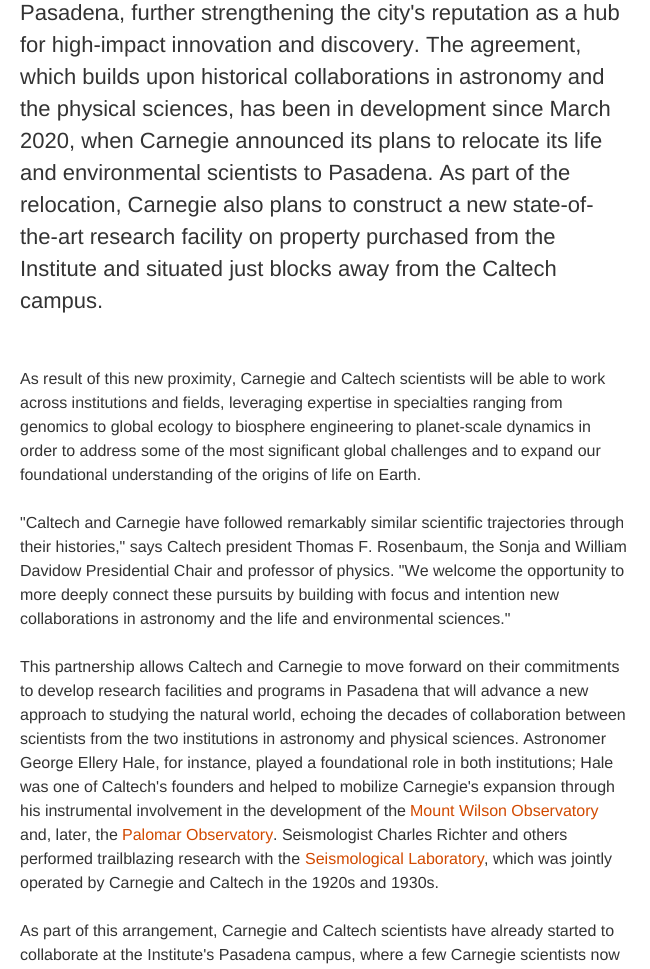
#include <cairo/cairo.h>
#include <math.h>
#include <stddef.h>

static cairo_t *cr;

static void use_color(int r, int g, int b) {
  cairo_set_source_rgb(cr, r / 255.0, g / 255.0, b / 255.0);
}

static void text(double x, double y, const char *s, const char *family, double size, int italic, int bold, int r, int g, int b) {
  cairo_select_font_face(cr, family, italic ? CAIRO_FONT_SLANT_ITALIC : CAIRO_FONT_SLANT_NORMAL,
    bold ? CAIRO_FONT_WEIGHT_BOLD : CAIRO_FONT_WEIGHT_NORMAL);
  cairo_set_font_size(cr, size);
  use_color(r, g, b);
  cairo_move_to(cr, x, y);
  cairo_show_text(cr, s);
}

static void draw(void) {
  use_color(255, 255, 255);
  cairo_paint(cr);
  text(20, 20, "Pasadena, further strengthening the city's reputation as a hub", "Liberation Sans", 22, 0, 0, 51, 51, 51);
  text(20, 52, "for high-impact innovation and discovery. The agreement,", "Liberation Sans", 22, 0, 0, 51, 51, 51);
  text(20, 84, "which builds upon historical collaborations in astronomy and", "Liberation Sans", 22, 0, 0, 51, 51, 51);
  text(20, 116, "the physical sciences, has been in development since March", "Liberation Sans", 22, 0, 0, 51, 51, 51);
  text(20, 148, "2020, when Carnegie announced its plans to relocate its life", "Liberation Sans", 22, 0, 0, 51, 51, 51);
  text(20, 180, "and environmental scientists to Pasadena. As part of the", "Liberation Sans", 22, 0, 0, 51, 51, 51);
  text(20, 212, "relocation, Carnegie also plans to construct a new state-of-", "Liberation Sans", 22, 0, 0, 51, 51, 51);
  text(20, 244, "the-art research facility on property purchased from the", "Liberation Sans", 22, 0, 0, 51, 51, 51);
  text(20, 276, "Institute and situated just blocks away from the Caltech", "Liberation Sans", 22, 0, 0, 51, 51, 51);
  text(20, 308, "campus.", "Liberation Sans", 22, 0, 0, 51, 51, 51);
  text(20, 384, "As result of this new proximity, Carnegie and Caltech scientists will be able to work", "Liberation Sans", 16, 0, 0, 51, 51, 51);
  text(20, 408, "across institutions and fields, leveraging expertise in specialties ranging from", "Liberation Sans", 16, 0, 0, 51, 51, 51);
  text(20, 432, "genomics to global ecology to biosphere engineering to planet-scale dynamics in", "Liberation Sans", 16, 0, 0, 51, 51, 51);
  text(20, 456, "order to address some of the most significant global challenges and to expand our", "Liberation Sans", 16, 0, 0, 51, 51, 51);
  text(20, 480, "foundational understanding of the origins of life on Earth.", "Liberation Sans", 16, 0, 0, 51, 51, 51);
  text(20, 528, "\"Caltech and Carnegie have followed remarkably similar scientific trajectories through", "Liberation Sans", 16, 0, 0, 51, 51, 51);
  text(20, 552, "their histories,\" says Caltech president Thomas F. Rosenbaum, the Sonja and William", "Liberation Sans", 16, 0, 0, 51, 51, 51);
  text(20, 576, "Davidow Presidential Chair and professor of physics. \"We welcome the opportunity to", "Liberation Sans", 16, 0, 0, 51, 51, 51);
  text(20, 600, "more deeply connect these pursuits by building with focus and intention new", "Liberation Sans", 16, 0, 0, 51, 51, 51);
  text(20, 624, "collaborations in astronomy and the life and environmental sciences.\"", "Liberation Sans", 16, 0, 0, 51, 51, 51);
  text(20, 672, "This partnership allows Caltech and Carnegie to move forward on their commitments", "Liberation Sans", 16, 0, 0, 51, 51, 51);
  text(20, 696, "to develop research facilities and programs in Pasadena that will advance a new", "Liberation Sans", 16, 0, 0, 51, 51, 51);
  text(20, 720, "approach to studying the natural world, echoing the decades of collaboration between", "Liberation Sans", 16, 0, 0, 51, 51, 51);
  text(20, 744, "scientists from the two institutions in astronomy and physical sciences. Astronomer", "Liberation Sans", 16, 0, 0, 51, 51, 51);
  text(20, 768, "George Ellery Hale, for instance, played a foundational role in both institutions; Hale", "Liberation Sans", 16, 0, 0, 51, 51, 51);
  text(20, 792, "was one of Caltech's founders and helped to mobilize Carnegie's expansion through", "Liberation Sans", 16, 0, 0, 51, 51, 51);
  text(20, 816, "his instrumental involvement in the development of the", "Liberation Sans", 16, 0, 0, 51, 51, 51);
  text(410, 816, "Mount Wilson Observatory", "Liberation Sans", 16, 0, 0, 209, 73, 0);
  text(20, 840, "and, later, the", "Liberation Sans", 16, 0, 0, 51, 51, 51);
  text(122, 840, "Palomar Observatory", "Liberation Sans", 16, 0, 0, 209, 73, 0);
  text(273, 840, ". Seismologist Charles Richter and others", "Liberation Sans", 16, 0, 0, 51, 51, 51);
  text(20, 864, "performed trailblazing research with the", "Liberation Sans", 16, 0, 0, 51, 51, 51);
  text(305, 864, "Seismological Laboratory", "Liberation Sans", 16, 0, 0, 209, 73, 0);
  text(484, 864, ", which was jointly", "Liberation Sans", 16, 0, 0, 51, 51, 51);
  text(20, 888, "operated by Carnegie and Caltech in the 1920s and 1930s.", "Liberation Sans", 16, 0, 0, 51, 51, 51);
  text(20, 936, "As part of this arrangement, Carnegie and Caltech scientists have already started to", "Liberation Sans", 16, 0, 0, 51, 51, 51);
  text(20, 960, "collaborate at the Institute's Pasadena campus, where a few Carnegie scientists now", "Liberation Sans", 16, 0, 0, 51, 51, 51);
}

int main(void) {
  cairo_surface_t *surface = cairo_image_surface_create(CAIRO_FORMAT_RGB24, 650, 969);
  cr = cairo_create(surface);
  cairo_font_options_t *options = cairo_font_options_create();
  cairo_font_options_set_hint_metrics(options, CAIRO_HINT_METRICS_OFF);
  cairo_font_options_set_hint_style(options, CAIRO_HINT_STYLE_NONE);
  cairo_set_font_options(cr, options);
  cairo_set_miter_limit(cr, 4);
  draw();
  cairo_surface_write_to_png(surface, "out.png");
  cairo_font_options_destroy(options);
  cairo_destroy(cr);
  cairo_surface_destroy(surface);
  return 0;
}
